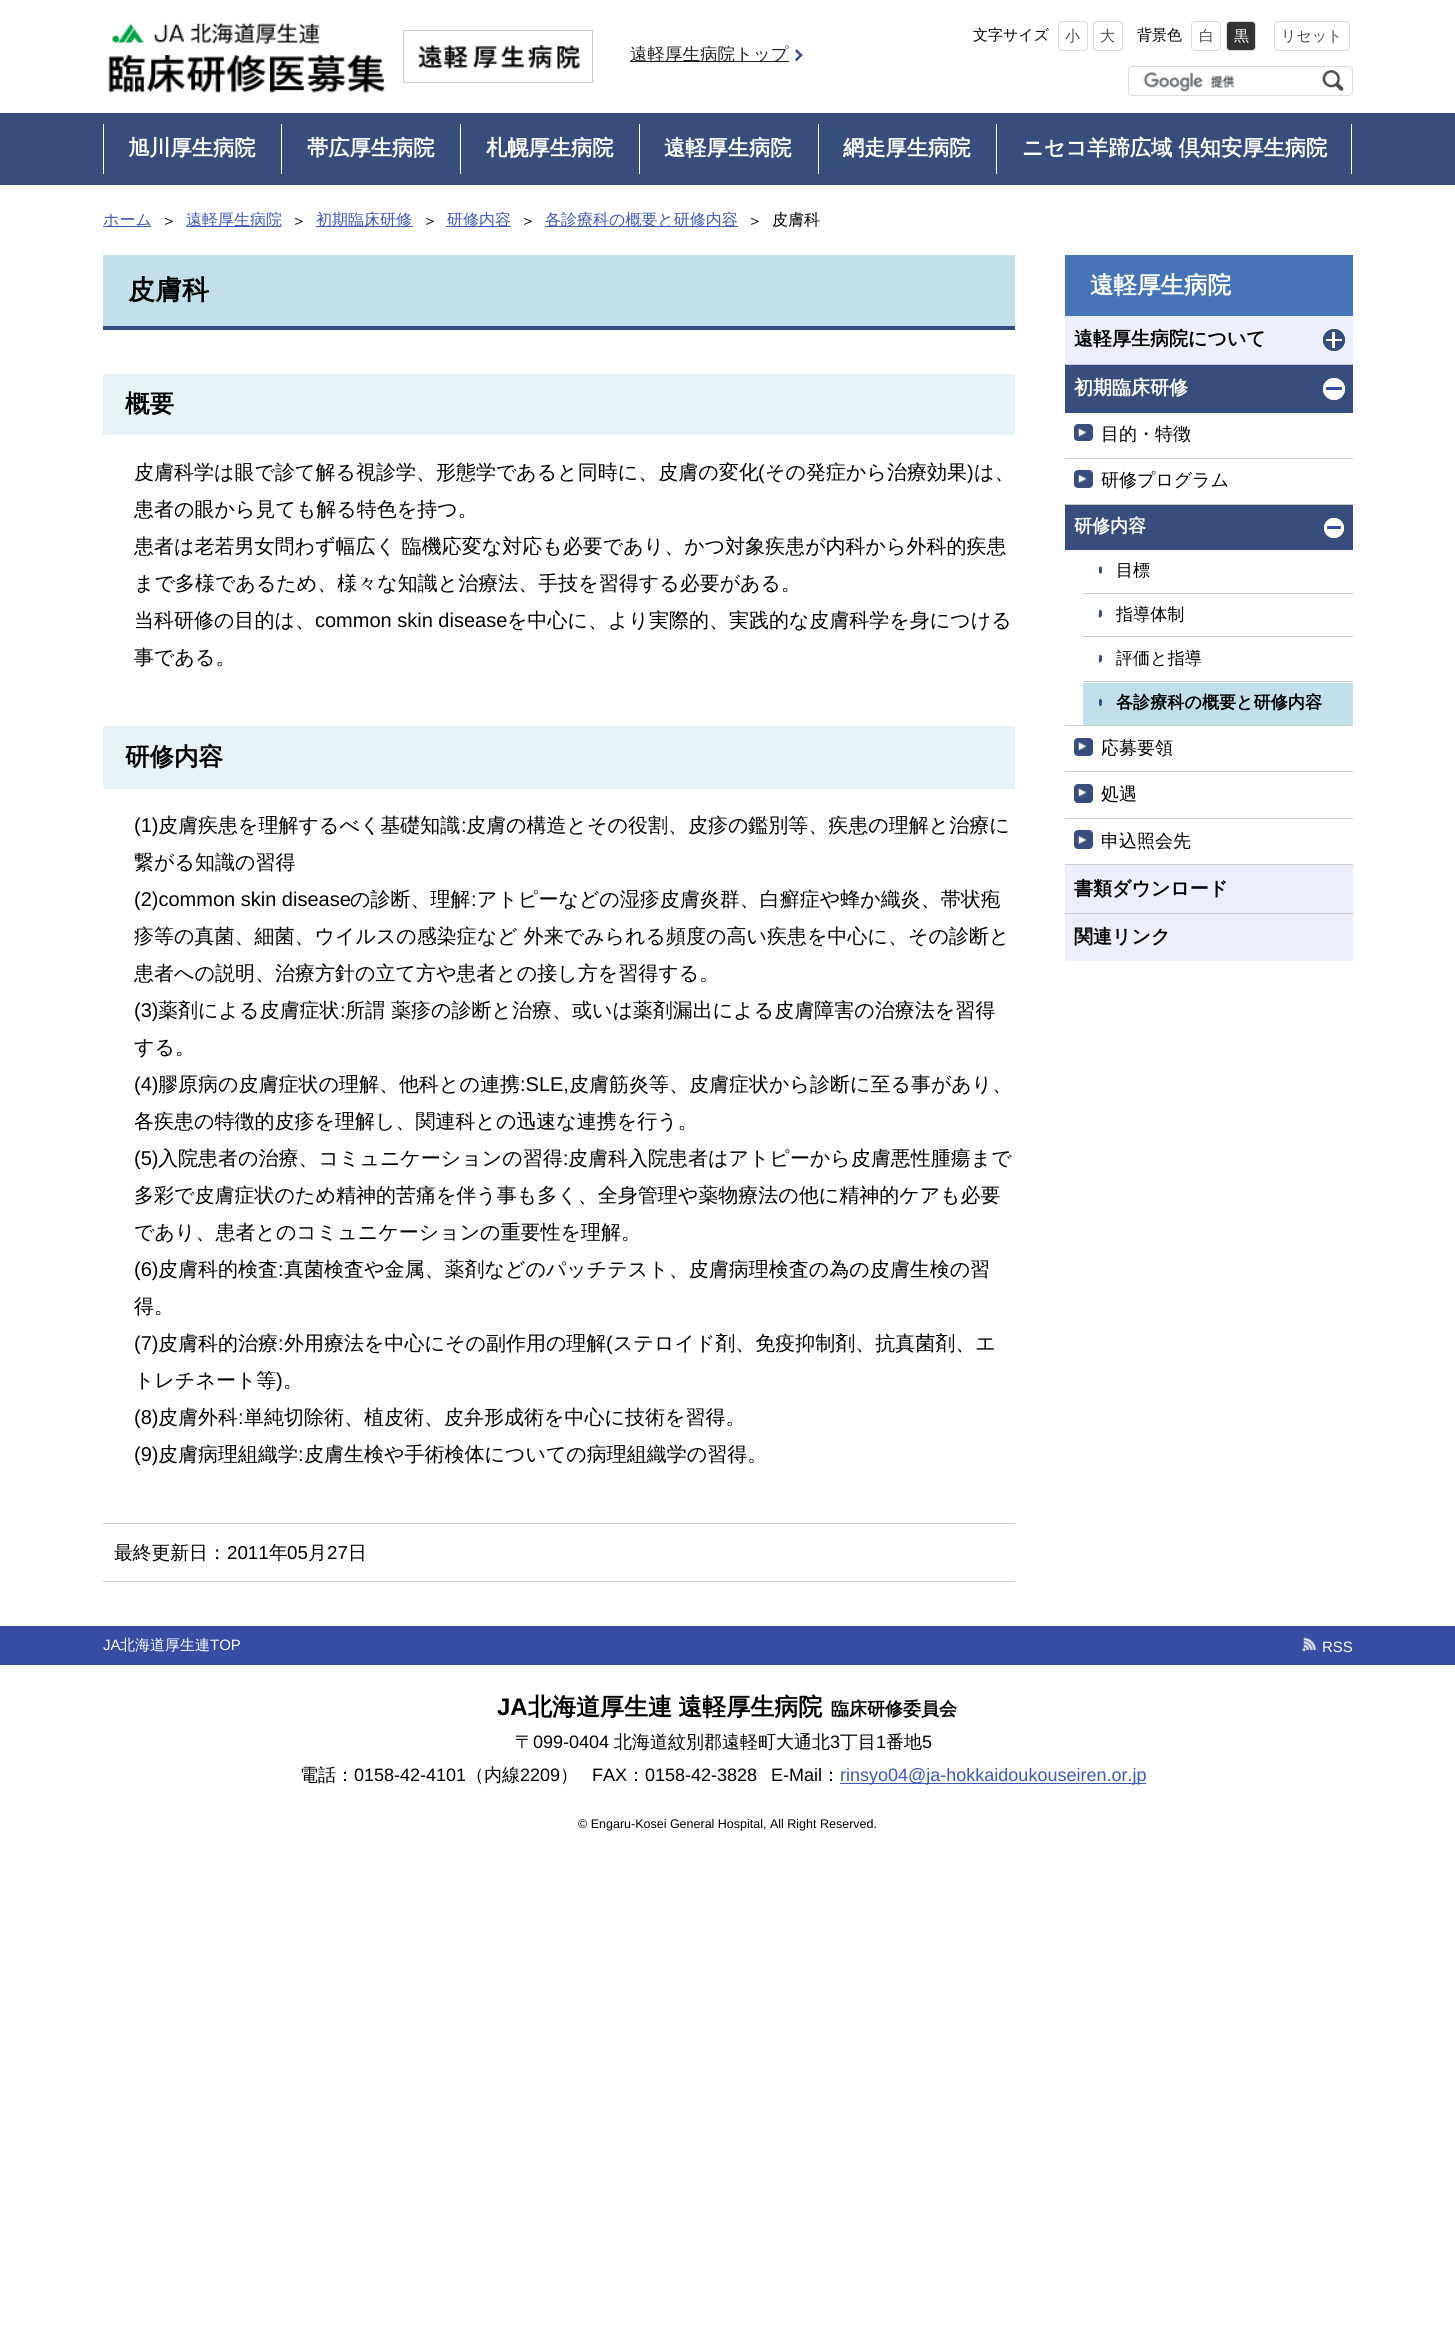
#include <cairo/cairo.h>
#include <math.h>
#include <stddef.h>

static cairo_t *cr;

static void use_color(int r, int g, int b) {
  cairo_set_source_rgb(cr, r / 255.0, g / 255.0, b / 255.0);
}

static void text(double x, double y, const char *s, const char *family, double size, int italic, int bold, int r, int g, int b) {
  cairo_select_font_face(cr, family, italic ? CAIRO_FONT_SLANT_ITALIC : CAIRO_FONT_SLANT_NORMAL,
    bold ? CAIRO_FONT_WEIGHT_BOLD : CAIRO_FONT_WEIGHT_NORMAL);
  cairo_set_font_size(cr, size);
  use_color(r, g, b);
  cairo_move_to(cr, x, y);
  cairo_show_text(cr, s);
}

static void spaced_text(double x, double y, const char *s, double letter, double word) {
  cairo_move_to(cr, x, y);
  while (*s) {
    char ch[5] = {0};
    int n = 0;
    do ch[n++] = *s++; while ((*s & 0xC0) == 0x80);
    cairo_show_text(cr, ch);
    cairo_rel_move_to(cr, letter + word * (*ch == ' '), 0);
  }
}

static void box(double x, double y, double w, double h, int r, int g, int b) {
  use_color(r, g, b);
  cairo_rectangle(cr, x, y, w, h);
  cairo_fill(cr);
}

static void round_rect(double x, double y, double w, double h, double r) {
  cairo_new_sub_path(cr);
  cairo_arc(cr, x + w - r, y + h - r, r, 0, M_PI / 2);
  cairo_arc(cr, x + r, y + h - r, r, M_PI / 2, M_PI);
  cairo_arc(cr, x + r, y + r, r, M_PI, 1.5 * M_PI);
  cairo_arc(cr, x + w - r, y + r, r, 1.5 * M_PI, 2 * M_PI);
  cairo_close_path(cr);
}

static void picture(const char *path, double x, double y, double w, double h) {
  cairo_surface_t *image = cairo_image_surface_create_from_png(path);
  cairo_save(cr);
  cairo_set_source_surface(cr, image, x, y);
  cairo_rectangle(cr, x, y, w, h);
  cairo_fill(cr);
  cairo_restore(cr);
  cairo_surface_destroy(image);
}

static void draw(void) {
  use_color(255, 255, 255);
  cairo_paint(cr);
  round_rect(1058.5, 21.5, 29, 29, 3.5);
  use_color(220, 220, 220);
  cairo_set_line_width(cr, 1);
  cairo_stroke(cr);
  round_rect(1093.5, 21.5, 29, 29, 3.5);
  cairo_stroke(cr);
  round_rect(1191.5, 21.5, 29, 29, 3.5);
  cairo_stroke(cr);
  use_color(51, 51, 51);
  round_rect(1226.5, 21.5, 29, 29, 3.5);
  cairo_fill_preserve(cr);
  use_color(220, 220, 220);
  cairo_stroke(cr);
  round_rect(1274.5, 21.5, 75, 29, 3.5);
  cairo_stroke(cr);
  picture("img_01.png", 108, 22, 278, 71);
  picture("img_02.png", 418, 44, 163, 25);
  cairo_rectangle(cr, 403.5, 30.5, 189, 52);
  use_color(204, 204, 204);
  cairo_stroke(cr);
  box(630, 61, 159, 1, 34, 34, 34);
  use_color(56, 76, 126);
  cairo_new_path(cr);
  cairo_move_to(cr, 796.5, 49);
  cairo_line_to(cr, 802.5, 55);
  cairo_line_to(cr, 801, 57);
  cairo_line_to(cr, 795, 51);
  cairo_close_path(cr);
  cairo_fill(cr);
  cairo_new_path(cr);
  cairo_move_to(cr, 801, 53.5);
  cairo_line_to(cr, 802.5, 55);
  cairo_line_to(cr, 796.5, 61.5);
  cairo_line_to(cr, 795, 59.5);
  cairo_close_path(cr);
  cairo_fill(cr);
  round_rect(1128.5, 66.5, 224, 29, 3.5);
  use_color(220, 220, 220);
  cairo_stroke(cr);
  picture("img_03.png", 1143, 72, 92, 20);
  picture("img_04.png", 1322, 70, 22, 22);
  box(0, 113, 1455, 72, 56, 76, 126);
  box(103, 124, 1, 50, 255, 255, 255);
  box(281, 124, 1, 50, 255, 255, 255);
  box(460, 124, 1, 50, 255, 255, 255);
  box(639, 124, 1, 50, 255, 255, 255);
  box(818, 124, 1, 50, 255, 255, 255);
  box(996, 124, 1, 50, 255, 255, 255);
  box(1351, 124, 1, 50, 255, 255, 255);
  box(103, 226, 48, 1, 63, 87, 181);
  box(186, 226, 95, 1, 63, 87, 181);
  box(316, 226, 97, 1, 63, 87, 181);
  box(446, 226, 65, 1, 63, 87, 181);
  box(545, 226, 193, 1, 63, 87, 181);
  box(103, 255, 912, 71, 195, 223, 234);
  box(103, 326, 912, 4, 56, 76, 126);
  box(103, 374, 912, 61, 232, 243, 247);
  box(103, 726, 912, 63, 232, 243, 247);
  box(103, 1523, 912, 1, 204, 204, 204);
  box(103, 1581, 912, 1, 204, 204, 204);
  box(1065, 255, 288, 61, 70, 116, 183);
  box(1065, 316, 288, 48, 237, 240, 252);
  use_color(56, 76, 126);
  cairo_arc(cr, 1334, 340, 11, 0, 2 * M_PI);
  cairo_fill(cr);
  box(1325, 339, 18, 2, 255, 255, 255);
  box(1332, 331, 3, 18, 255, 255, 255);
  cairo_arc(cr, 1334, 340, 9.5, 0, 2 * M_PI);
  use_color(56, 76, 126);
  cairo_set_line_width(cr, 3);
  cairo_stroke(cr);
  box(1065, 364, 288, 1, 204, 204, 204);
  box(1065, 365, 288, 48, 56, 76, 126);
  use_color(255, 255, 255);
  cairo_arc(cr, 1334, 389, 11, 0, 2 * M_PI);
  cairo_fill(cr);
  box(1325, 387, 18, 3, 56, 76, 164);
  cairo_arc(cr, 1334, 389, 9.5, 0, 2 * M_PI);
  use_color(255, 255, 255);
  cairo_stroke(cr);
  use_color(56, 76, 126);
  round_rect(1074, 424, 19, 17, 4);
  cairo_fill(cr);
  picture("img_05.png", 1078, 428, 9, 9);
  box(1065, 458, 288, 1, 204, 204, 204);
  use_color(56, 76, 126);
  round_rect(1074, 470, 19, 18, 4);
  cairo_fill(cr);
  picture("img_06.png", 1078, 474, 9, 9);
  box(1065, 504, 288, 1, 204, 204, 204);
  box(1065, 505, 288, 45, 56, 76, 126);
  use_color(255, 255, 255);
  cairo_arc(cr, 1334, 528, 10, 0, 2 * M_PI);
  cairo_fill(cr);
  box(1326, 526, 15, 3, 56, 76, 164);
  cairo_arc(cr, 1334, 528, 8.5, 0, 2 * M_PI);
  use_color(255, 255, 255);
  cairo_stroke(cr);
  use_color(56, 76, 126);
  cairo_new_path(cr);
  cairo_move_to(cr, 1100, 566);
  cairo_line_to(cr, 1102, 567.5);
  cairo_line_to(cr, 1102, 572.5);
  cairo_line_to(cr, 1100, 574);
  cairo_curve_to(cr, 1098.5, 572.5, 1098.5, 567.5, 1100, 566);
  cairo_close_path(cr);
  cairo_fill(cr);
  box(1083, 593, 270, 1, 204, 204, 204);
  use_color(56, 76, 126);
  cairo_new_path(cr);
  cairo_move_to(cr, 1100, 609.5);
  cairo_line_to(cr, 1102, 611);
  cairo_line_to(cr, 1102, 616);
  cairo_line_to(cr, 1099.5, 618);
  cairo_curve_to(cr, 1098.5, 616.5, 1098.5, 611, 1100, 609.5);
  cairo_close_path(cr);
  cairo_fill(cr);
  box(1083, 636, 270, 1, 204, 204, 204);
  use_color(56, 76, 126);
  cairo_new_path(cr);
  cairo_move_to(cr, 1100, 654.5);
  cairo_line_to(cr, 1102, 656);
  cairo_line_to(cr, 1102, 661);
  cairo_line_to(cr, 1099.5, 663);
  cairo_curve_to(cr, 1098.5, 661.5, 1098.5, 656, 1100, 654.5);
  cairo_close_path(cr);
  cairo_fill(cr);
  box(1083, 681, 270, 1, 204, 204, 204);
  box(1083, 683, 270, 42, 195, 223, 234);
  use_color(56, 76, 126);
  cairo_new_path(cr);
  cairo_move_to(cr, 1100, 698.5);
  cairo_line_to(cr, 1102, 700);
  cairo_line_to(cr, 1102, 705);
  cairo_line_to(cr, 1100, 706.5);
  cairo_curve_to(cr, 1098.5, 705, 1098.5, 700, 1100, 698.5);
  cairo_close_path(cr);
  cairo_fill(cr);
  box(1065, 725, 288, 1, 204, 204, 204);
  use_color(56, 76, 126);
  round_rect(1074, 738, 19, 18, 4);
  cairo_fill(cr);
  picture("img_07.png", 1078, 742, 9, 9);
  box(1065, 771, 288, 1, 204, 204, 204);
  use_color(56, 76, 126);
  round_rect(1074, 784, 19, 19, 4);
  cairo_fill(cr);
  picture("img_05.png", 1078, 788, 9, 9);
  box(1065, 818, 288, 1, 204, 204, 204);
  use_color(56, 76, 126);
  round_rect(1074, 830, 19, 19, 4);
  cairo_fill(cr);
  picture("img_08.png", 1078, 836, 9, 8);
  box(1065, 864, 288, 1, 204, 204, 204);
  box(1065, 865, 288, 48, 237, 240, 252);
  box(1065, 913, 288, 1, 204, 204, 204);
  box(1065, 914, 288, 47, 237, 240, 252);
  box(0, 1626, 1455, 39, 56, 76, 164);
  picture("img_09.png", 1302, 1637, 15, 15);
  box(840, 1783, 306, 1, 63, 87, 181);
  text(973, 40, "文字サイズ", "WenQuanYi Zen Hei Medium", 15, 0, 0, 0, 0, 0);
  text(1065, 41, "小", "WenQuanYi Zen Hei Medium", 15, 0, 0, 77, 77, 77);
  text(1100, 41, "大", "WenQuanYi Zen Hei Medium", 15, 0, 0, 77, 77, 77);
  text(1137, 40, "背景色", "WenQuanYi Zen Hei Medium", 15, 0, 0, 0, 0, 0);
  text(1199, 41, "白", "WenQuanYi Zen Hei Medium", 15, 0, 0, 77, 77, 77);
  text(1234, 41, "黒", "WenQuanYi Zen Hei Medium", 15, 0, 0, 255, 255, 255);
  text(1281, 41, "リセット", "WenQuanYi Zen Hei Medium", 15, 0, 0, 77, 77, 77);
  text(630, 60, "遠軽厚生病院トップ", "WenQuanYi Zen Hei Medium", 17.5, 0, 0, 34, 34, 34);
  text(128, 155, "旭川厚生病院", "WenQuanYi Zen Hei", 21.25, 0, 1, 255, 255, 255);
  text(307, 155, "帯広厚生病院", "WenQuanYi Zen Hei", 21.25, 0, 1, 255, 255, 255);
  text(486, 155, "札幌厚生病院", "WenQuanYi Zen Hei", 21.25, 0, 1, 255, 255, 255);
  text(664, 155, "遠軽厚生病院", "WenQuanYi Zen Hei", 21.25, 0, 1, 255, 255, 255);
  text(843, 155, "網走厚生病院", "WenQuanYi Zen Hei", 21.25, 0, 1, 255, 255, 255);
  text(1022, 155, "ニセコ羊蹄広域 倶知安厚生病院", "WenQuanYi Zen Hei", 21.25, 0, 1, 255, 255, 255);
  text(103, 225, "ホーム", "WenQuanYi Zen Hei Medium", 16, 0, 0, 63, 87, 181);
  text(161, 226, "＞", "WenQuanYi Zen Hei Medium", 16, 0, 0, 0, 0, 0);
  text(186, 225, "遠軽厚生病院", "WenQuanYi Zen Hei Medium", 16, 0, 0, 63, 87, 181);
  text(291, 226, "＞", "WenQuanYi Zen Hei Medium", 16, 0, 0, 0, 0, 0);
  text(316, 225, "初期臨床研修", "WenQuanYi Zen Hei Medium", 16, 0, 0, 63, 87, 181);
  text(422, 226, "＞", "WenQuanYi Zen Hei Medium", 16, 0, 0, 0, 0, 0);
  text(447, 225, "研修内容", "WenQuanYi Zen Hei Medium", 16, 0, 0, 63, 87, 181);
  text(520, 226, "＞", "WenQuanYi Zen Hei Medium", 16, 0, 0, 0, 0, 0);
  text(545, 225, "各診療科の概要と研修内容", "WenQuanYi Zen Hei Medium", 16, 0, 0, 63, 87, 181);
  text(747, 226, "＞", "WenQuanYi Zen Hei Medium", 16, 0, 0, 0, 0, 0);
  text(772, 225, "皮膚科", "WenQuanYi Zen Hei Medium", 16, 0, 0, 0, 0, 0);
  text(128, 299, "皮膚科", "WenQuanYi Zen Hei", 27, 0, 1, 0, 0, 0);
  text(125, 412, "概要", "WenQuanYi Zen Hei", 24.5, 0, 1, 0, 0, 0);
  text(134, 479, "皮膚科学は眼で診て解る視診学、形態学であると同時に、皮膚の変化", "WenQuanYi Zen Hei Medium", 20, 0, 0, 0, 0, 0);
  text(758, 479, "(", "Liberation Sans", 20, 0, 0, 0, 0, 0);
  text(765, 479, "その発症から治療効果", "WenQuanYi Zen Hei Medium", 20, 0, 0, 0, 0, 0);
  text(967, 479, ")", "Liberation Sans", 20, 0, 0, 0, 0, 0);
  text(974, 479, "は、", "WenQuanYi Zen Hei Medium", 20, 0, 0, 0, 0, 0);
  text(134, 516, "患者の眼から見ても解る特色を持つ。", "WenQuanYi Zen Hei Medium", 20, 0, 0, 0, 0, 0);
  text(134, 553, "患者は老若男女問わず幅広く 臨機応変な対応も必要であり、かつ対象疾患が内科から外科的疾患", "WenQuanYi Zen Hei Medium", 20, 0, 0, 0, 0, 0);
  text(134, 590, "まで多様であるため、様々な知識と治療法、手技を習得する必要がある。", "WenQuanYi Zen Hei Medium", 20, 0, 0, 0, 0, 0);
  text(134, 627, "当科研修の目的は、", "WenQuanYi Zen Hei Medium", 20, 0, 0, 0, 0, 0);
  text(315, 627, "common skin disease", "Liberation Sans", 20, 0, 0, 0, 0, 0);
  text(507, 627, "を中心に、より実際的、実践的な皮膚科学を身につける", "WenQuanYi Zen Hei Medium", 20, 0, 0, 0, 0, 0);
  text(134, 664, "事である。", "WenQuanYi Zen Hei Medium", 20, 0, 0, 0, 0, 0);
  text(125, 765, "研修内容", "WenQuanYi Zen Hei", 24.5, 0, 1, 0, 0, 0);
  text(134, 832, "(1)", "Liberation Sans", 20, 0, 0, 0, 0, 0);
  text(158, 832, "皮膚疾患を理解するべく基礎知識", "WenQuanYi Zen Hei Medium", 20, 0, 0, 0, 0, 0);
  text(461, 832, ":", "Liberation Sans", 20, 0, 0, 0, 0, 0);
  text(466, 832, "皮膚の構造とその役割、皮疹の鑑別等、疾患の理解と治療に", "WenQuanYi Zen Hei Medium", 20, 0, 0, 0, 0, 0);
  text(134, 869, "繋がる知識の習得", "WenQuanYi Zen Hei Medium", 20, 0, 0, 0, 0, 0);
  text(134, 906, "(2)common skin disease", "Liberation Sans", 20, 0, 0, 0, 0, 0);
  text(350, 906, "の診断、理解", "WenQuanYi Zen Hei Medium", 20, 0, 0, 0, 0, 0);
  text(471, 906, ":", "Liberation Sans", 20, 0, 0, 0, 0, 0);
  text(477, 906, "アトピーなどの湿疹皮膚炎群、白癬症や蜂か織炎、帯状疱", "WenQuanYi Zen Hei Medium", 20, 0, 0, 0, 0, 0);
  text(134, 943, "疹等の真菌、細菌、ウイルスの感染症など 外来でみられる頻度の高い疾患を中心に、その診断と", "WenQuanYi Zen Hei Medium", 20, 0, 0, 0, 0, 0);
  text(134, 980, "患者への説明、治療方針の立て方や患者との接し方を習得する。", "WenQuanYi Zen Hei Medium", 20, 0, 0, 0, 0, 0);
  text(134, 1017, "(3)", "Liberation Sans", 20, 0, 0, 0, 0, 0);
  text(158, 1017, "薬剤による皮膚症状", "WenQuanYi Zen Hei Medium", 20, 0, 0, 0, 0, 0);
  text(340, 1017, ":", "Liberation Sans", 20, 0, 0, 0, 0, 0);
  text(345, 1017, "所謂 薬疹の診断と治療、或いは薬剤漏出による皮膚障害の治療法を習得", "WenQuanYi Zen Hei Medium", 20, 0, 0, 0, 0, 0);
  text(134, 1054, "する。", "WenQuanYi Zen Hei Medium", 20, 0, 0, 0, 0, 0);
  text(134, 1091, "(4)", "Liberation Sans", 20, 0, 0, 0, 0, 0);
  text(158, 1091, "膠原病の皮膚症状の理解、他科との連携", "WenQuanYi Zen Hei Medium", 20, 0, 0, 0, 0, 0);
  text(520, 1091, ":SLE,", "Liberation Sans", 20, 0, 0, 0, 0, 0);
  text(569, 1091, "皮膚筋炎等、皮膚症状から診断に至る事があり、", "WenQuanYi Zen Hei Medium", 20, 0, 0, 0, 0, 0);
  text(134, 1128, "各疾患の特徴的皮疹を理解し、関連科との迅速な連携を行う。", "WenQuanYi Zen Hei Medium", 20, 0, 0, 0, 0, 0);
  text(134, 1165, "(5)", "Liberation Sans", 20, 0, 0, 0, 0, 0);
  text(158, 1165, "入院患者の治療、コミュニケーションの習得", "WenQuanYi Zen Hei Medium", 20, 0, 0, 0, 0, 0);
  text(563, 1165, ":", "Liberation Sans", 20, 0, 0, 0, 0, 0);
  text(568, 1165, "皮膚科入院患者はアトピーから皮膚悪性腫瘍まで", "WenQuanYi Zen Hei Medium", 20, 0, 0, 0, 0, 0);
  text(134, 1202, "多彩で皮膚症状のため精神的苦痛を伴う事も多く、全身管理や薬物療法の他に精神的ケアも必要", "WenQuanYi Zen Hei Medium", 20, 0, 0, 0, 0, 0);
  text(134, 1239, "であり、患者とのコミュニケーションの重要性を理解。", "WenQuanYi Zen Hei Medium", 20, 0, 0, 0, 0, 0);
  text(134, 1276, "(6)", "Liberation Sans", 20, 0, 0, 0, 0, 0);
  text(158, 1276, "皮膚科的検査", "WenQuanYi Zen Hei Medium", 20, 0, 0, 0, 0, 0);
  text(278, 1276, ":", "Liberation Sans", 20, 0, 0, 0, 0, 0);
  text(284, 1276, "真菌検査や金属、薬剤などのパッチテスト、皮膚病理検査の為の皮膚生検の習", "WenQuanYi Zen Hei Medium", 20, 0, 0, 0, 0, 0);
  text(134, 1313, "得。", "WenQuanYi Zen Hei Medium", 20, 0, 0, 0, 0, 0);
  text(134, 1350, "(7)", "Liberation Sans", 20, 0, 0, 0, 0, 0);
  text(158, 1350, "皮膚科的治療", "WenQuanYi Zen Hei Medium", 20, 0, 0, 0, 0, 0);
  text(278, 1350, ":", "Liberation Sans", 20, 0, 0, 0, 0, 0);
  text(284, 1350, "外用療法を中心にその副作用の理解", "WenQuanYi Zen Hei Medium", 20, 0, 0, 0, 0, 0);
  text(606, 1350, "(", "Liberation Sans", 20, 0, 0, 0, 0, 0);
  text(613, 1350, "ステロイド剤、免疫抑制剤、抗真菌剤、エ", "WenQuanYi Zen Hei Medium", 20, 0, 0, 0, 0, 0);
  text(134, 1387, "トレチネート等", "WenQuanYi Zen Hei Medium", 20, 0, 0, 0, 0, 0);
  text(276, 1387, ")", "Liberation Sans", 20, 0, 0, 0, 0, 0);
  text(283, 1387, "。", "WenQuanYi Zen Hei Medium", 20, 0, 0, 0, 0, 0);
  text(134, 1424, "(8)", "Liberation Sans", 20, 0, 0, 0, 0, 0);
  text(158, 1424, "皮膚外科", "WenQuanYi Zen Hei Medium", 20, 0, 0, 0, 0, 0);
  text(238, 1424, ":", "Liberation Sans", 20, 0, 0, 0, 0, 0);
  text(244, 1424, "単純切除術、植皮術、皮弁形成術を中心に技術を習得。", "WenQuanYi Zen Hei Medium", 20, 0, 0, 0, 0, 0);
  text(134, 1461, "(9)", "Liberation Sans", 20, 0, 0, 0, 0, 0);
  text(158, 1461, "皮膚病理組織学", "WenQuanYi Zen Hei Medium", 20, 0, 0, 0, 0, 0);
  text(298, 1461, ":", "Liberation Sans", 20, 0, 0, 0, 0, 0);
  text(304, 1461, "皮膚生検や手術検体についての病理組織学の習得。", "WenQuanYi Zen Hei Medium", 20, 0, 0, 0, 0, 0);
  text(114, 1559, "最終更新日：", "WenQuanYi Zen Hei Medium", 18.75, 0, 0, 0, 0, 0);
  text(227, 1559, "2011", "Liberation Sans", 18.75, 0, 0, 0, 0, 0);
  text(269, 1559, "年", "WenQuanYi Zen Hei Medium", 18.75, 0, 0, 0, 0, 0);
  text(287, 1559, "05", "Liberation Sans", 18.75, 0, 0, 0, 0, 0);
  text(308, 1559, "月", "WenQuanYi Zen Hei Medium", 18.75, 0, 0, 0, 0, 0);
  text(327, 1559, "27", "Liberation Sans", 18.75, 0, 0, 0, 0, 0);
  text(348, 1559, "日", "WenQuanYi Zen Hei Medium", 18.75, 0, 0, 0, 0, 0);
  text(1090, 293, "遠軽厚生病院", "WenQuanYi Zen Hei", 23.5, 0, 1, 255, 255, 255);
  text(1074, 345, "遠軽厚生病院について", "WenQuanYi Zen Hei", 19, 0, 1, 0, 0, 0);
  text(1074, 394, "初期臨床研修", "WenQuanYi Zen Hei", 19, 0, 1, 255, 255, 255);
  text(1101, 440, "目的・特徴", "WenQuanYi Zen Hei Medium", 18, 0, 0, 0, 0, 0);
  text(1101, 486, "研修プログラム", "WenQuanYi Zen Hei Medium", 18, 0, 0, 0, 0, 0);
  text(1074, 532, "研修内容", "WenQuanYi Zen Hei", 18, 0, 1, 255, 255, 255);
  text(1116, 576, "目標", "WenQuanYi Zen Hei Medium", 17.1, 0, 0, 0, 0, 0);
  text(1116, 620, "指導体制", "WenQuanYi Zen Hei Medium", 17.1, 0, 0, 0, 0, 0);
  text(1116, 664, "評価と指導", "WenQuanYi Zen Hei Medium", 17.1, 0, 0, 0, 0, 0);
  text(1116, 708, "各診療科の概要と研修内容", "WenQuanYi Zen Hei", 17.1, 0, 1, 0, 0, 0);
  text(1101, 754, "応募要領", "WenQuanYi Zen Hei Medium", 18, 0, 0, 0, 0, 0);
  text(1101, 800, "処遇", "WenQuanYi Zen Hei Medium", 18, 0, 0, 0, 0, 0);
  text(1101, 847, "申込照会先", "WenQuanYi Zen Hei Medium", 18, 0, 0, 0, 0, 0);
  text(1074, 895, "書類ダウンロード", "WenQuanYi Zen Hei", 19, 0, 1, 0, 0, 0);
  text(1074, 943, "関連リンク", "WenQuanYi Zen Hei", 19, 0, 1, 0, 0, 0);
  text(103, 1650, "JA", "Liberation Sans", 15, 0, 0, 255, 255, 255);
  text(120, 1650, "北海道厚生連", "WenQuanYi Zen Hei Medium", 15, 0, 0, 255, 255, 255);
  text(210, 1650, "TOP", "Liberation Sans", 15, 0, 0, 255, 255, 255);
  text(1322, 1652, "RSS", "Liberation Sans", 15, 0, 0, 255, 255, 255);
  text(497, 1715, "JA", "Liberation Sans", 24, 0, 1, 0, 0, 0);
  cairo_select_font_face(cr, "WenQuanYi Zen Hei", CAIRO_FONT_SLANT_NORMAL, CAIRO_FONT_WEIGHT_BOLD);
  spaced_text(528, 1715, "北海道厚生連 遠軽厚生病院", 0, -1);
  text(831, 1715, "臨床研修委員会", "WenQuanYi Zen Hei", 18, 0, 1, 0, 0, 0);
  text(515, 1748, "〒", "WenQuanYi Zen Hei Medium", 18, 0, 0, 0, 0, 0);
  text(533, 1748, "099-0404", "Liberation Sans", 18, 0, 0, 0, 0, 0);
  text(614, 1748, "北海道紋別郡遠軽町大通北", "WenQuanYi Zen Hei Medium", 18, 0, 0, 0, 0, 0);
  text(830, 1748, "3", "Liberation Sans", 18, 0, 0, 0, 0, 0);
  text(840, 1748, "丁目", "WenQuanYi Zen Hei Medium", 18, 0, 0, 0, 0, 0);
  text(876, 1748, "1", "Liberation Sans", 18, 0, 0, 0, 0, 0);
  text(886, 1748, "番地", "WenQuanYi Zen Hei Medium", 18, 0, 0, 0, 0, 0);
  text(922, 1748, "5", "Liberation Sans", 18, 0, 0, 0, 0, 0);
  text(300, 1781, "電話：", "WenQuanYi Zen Hei Medium", 18, 0, 0, 0, 0, 0);
  text(354, 1781, "0158-42-4101", "Liberation Sans", 18, 0, 0, 0, 0, 0);
  text(466, 1781, "（内線", "WenQuanYi Zen Hei Medium", 18, 0, 0, 0, 0, 0);
  text(520, 1781, "2209", "Liberation Sans", 18, 0, 0, 0, 0, 0);
  text(560, 1781, "）", "WenQuanYi Zen Hei Medium", 18, 0, 0, 0, 0, 0);
  text(592, 1781, "FAX", "Liberation Sans", 18, 0, 0, 0, 0, 0);
  text(627, 1781, "：", "WenQuanYi Zen Hei Medium", 18, 0, 0, 0, 0, 0);
  text(645, 1781, "0158-42-3828", "Liberation Sans", 18, 0, 0, 0, 0, 0);
  text(771, 1781, "E-Mail", "Liberation Sans", 18, 0, 0, 0, 0, 0);
  text(822, 1781, "：", "WenQuanYi Zen Hei Medium", 18, 0, 0, 0, 0, 0);
  text(840, 1781, "rinsyo04@ja-hokkaidoukouseiren.or.jp", "Liberation Sans", 18, 0, 0, 63, 87, 181);
  text(578, 1828, "© Engaru-Kosei General Hospital, All Right Reserved.", "Liberation Sans", 12.5, 0, 0, 0, 0, 0);
}

int main(void) {
  cairo_surface_t *surface = cairo_image_surface_create(CAIRO_FORMAT_RGB24, 1455, 2333);
  cr = cairo_create(surface);
  cairo_font_options_t *options = cairo_font_options_create();
  cairo_font_options_set_hint_metrics(options, CAIRO_HINT_METRICS_OFF);
  cairo_font_options_set_hint_style(options, CAIRO_HINT_STYLE_NONE);
  cairo_set_font_options(cr, options);
  cairo_set_miter_limit(cr, 4);
  draw();
  cairo_surface_write_to_png(surface, "out.png");
  cairo_font_options_destroy(options);
  cairo_destroy(cr);
  cairo_surface_destroy(surface);
  return 0;
}
